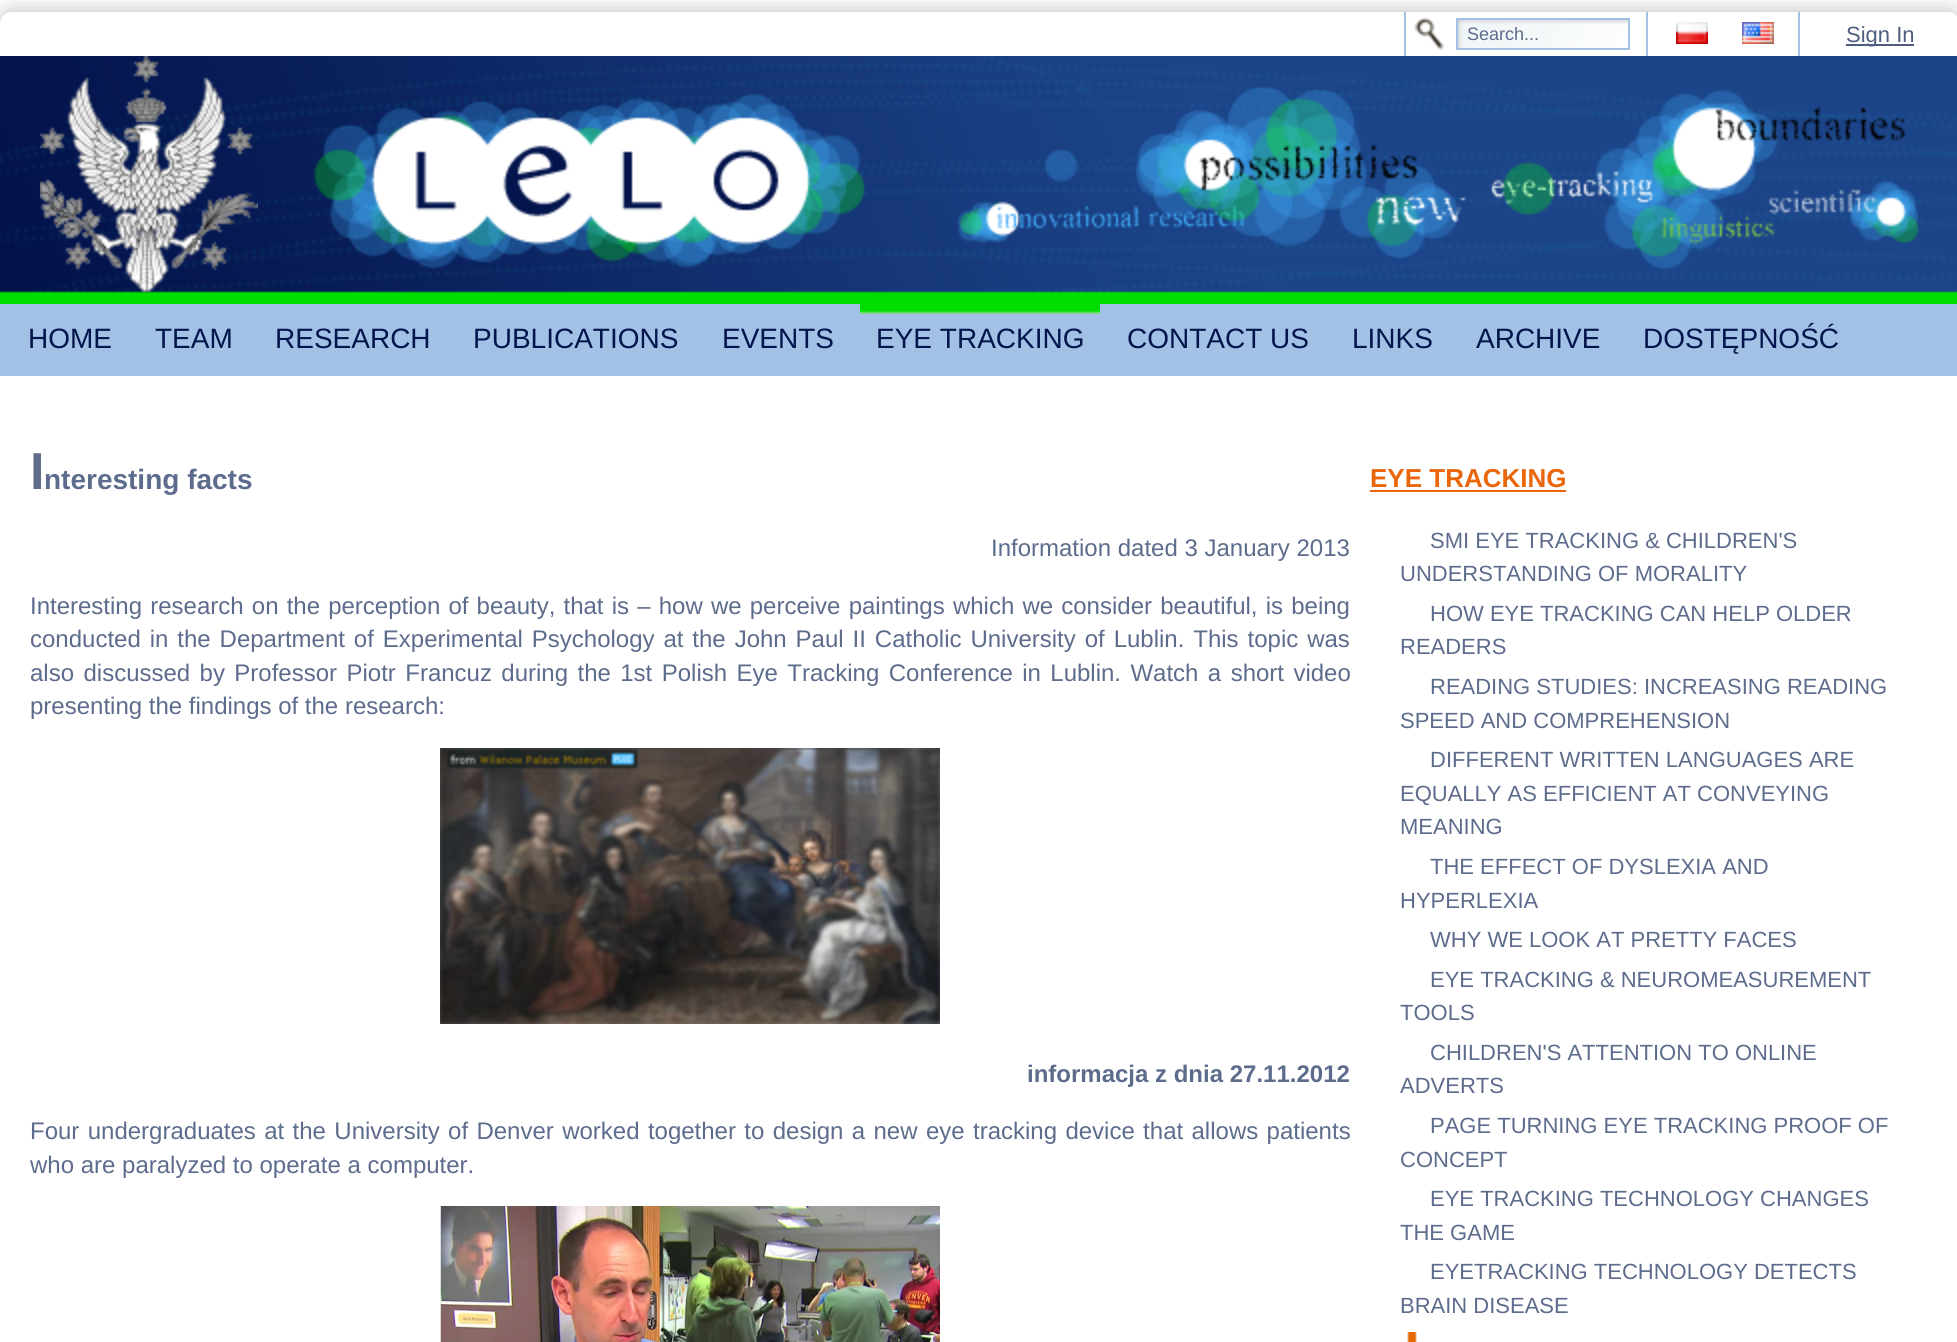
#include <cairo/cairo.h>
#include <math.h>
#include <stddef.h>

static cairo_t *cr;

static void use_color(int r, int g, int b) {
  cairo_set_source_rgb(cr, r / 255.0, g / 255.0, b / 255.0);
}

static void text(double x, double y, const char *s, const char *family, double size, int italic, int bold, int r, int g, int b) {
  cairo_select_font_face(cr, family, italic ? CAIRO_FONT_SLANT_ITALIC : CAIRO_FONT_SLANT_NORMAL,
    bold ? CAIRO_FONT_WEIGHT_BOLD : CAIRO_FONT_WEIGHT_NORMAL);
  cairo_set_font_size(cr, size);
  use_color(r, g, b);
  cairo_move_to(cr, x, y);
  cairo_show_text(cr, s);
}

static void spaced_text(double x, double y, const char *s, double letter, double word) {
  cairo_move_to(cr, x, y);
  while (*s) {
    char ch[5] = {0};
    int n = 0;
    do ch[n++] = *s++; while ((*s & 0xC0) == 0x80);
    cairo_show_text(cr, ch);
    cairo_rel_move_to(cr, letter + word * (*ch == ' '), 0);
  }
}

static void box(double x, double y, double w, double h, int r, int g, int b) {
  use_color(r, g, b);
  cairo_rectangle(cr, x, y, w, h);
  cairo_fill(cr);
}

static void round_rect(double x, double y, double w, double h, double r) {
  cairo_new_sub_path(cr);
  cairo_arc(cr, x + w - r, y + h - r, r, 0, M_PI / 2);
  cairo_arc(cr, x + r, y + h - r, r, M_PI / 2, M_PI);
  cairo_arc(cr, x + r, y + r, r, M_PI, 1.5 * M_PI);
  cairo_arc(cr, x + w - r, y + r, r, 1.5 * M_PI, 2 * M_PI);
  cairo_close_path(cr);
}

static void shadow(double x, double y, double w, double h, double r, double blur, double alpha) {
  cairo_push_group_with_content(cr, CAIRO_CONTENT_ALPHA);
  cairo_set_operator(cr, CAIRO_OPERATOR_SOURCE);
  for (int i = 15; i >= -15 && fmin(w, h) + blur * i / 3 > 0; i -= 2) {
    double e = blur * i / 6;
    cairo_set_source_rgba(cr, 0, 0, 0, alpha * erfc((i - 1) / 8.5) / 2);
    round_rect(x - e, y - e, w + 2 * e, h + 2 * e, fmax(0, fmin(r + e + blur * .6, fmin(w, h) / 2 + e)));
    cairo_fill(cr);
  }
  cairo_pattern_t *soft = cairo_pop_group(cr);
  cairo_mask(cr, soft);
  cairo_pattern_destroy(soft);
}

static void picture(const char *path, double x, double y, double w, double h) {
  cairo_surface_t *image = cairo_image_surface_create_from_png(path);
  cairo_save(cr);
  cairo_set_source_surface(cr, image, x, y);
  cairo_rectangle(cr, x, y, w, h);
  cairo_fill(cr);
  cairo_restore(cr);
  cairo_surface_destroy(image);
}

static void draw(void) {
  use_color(255, 255, 255);
  cairo_paint(cr);
  use_color(187, 187, 187);
  shadow(0, 12, 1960, 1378, 12, 12, 1);
  use_color(255, 255, 255);
  round_rect(0, 12, 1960, 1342, 12);
  cairo_fill(cr);
  picture("img_01.png", 1414, 18, 30, 32);
  box(1404, 12, 2, 44, 163, 192, 229);
  picture("img_02.png", 1458, 20, 170, 28);
  cairo_rectangle(cr, 1457, 19, 172, 30);
  cairo_stroke(cr);
  box(1646, 12, 2, 44, 163, 192, 229);
  picture("img_03.png", 1676, 22, 32, 22);
  picture("img_04.png", 1742, 22, 32, 22);
  box(1798, 12, 2, 50, 163, 192, 229);
  box(1846, 44, 68, 2, 79, 93, 126);
  picture("img_05.png", 0, 56, 1957, 248);
  picture("img_06.png", 40, 56, 218, 236);
  box(0, 304, 1957, 72, 163, 192, 229);
  picture("img_07.png", 860, 304, 240, 11);
  picture("img_08.png", 440, 748, 500, 276);
  picture("img_09.png", 440, 1206, 500, 136);
  box(1370, 490, 196, 2, 234, 102, 10);
  picture("img_10.png", 1407, 1332, 10, 10);
  text(1467, 40, "Search...", "Liberation Sans", 18, 0, 0, 93, 108, 140);
  text(1846, 42, "Sign In", "Liberation Sans", 22, 0, 0, 79, 93, 126);
  text(28, 348, "HOME", "Liberation Sans", 28, 0, 0, 4, 21, 77);
  text(155, 348, "TEAM", "Liberation Sans", 28, 0, 0, 4, 21, 77);
  text(275, 348, "RESEARCH", "Liberation Sans", 28, 0, 0, 4, 21, 77);
  text(473, 348, "PUBLICATIONS", "Liberation Sans", 28, 0, 0, 4, 21, 77);
  text(722, 348, "EVENTS", "Liberation Sans", 28, 0, 0, 4, 21, 77);
  text(876, 348, "EYE TRACKING", "Liberation Sans", 28, 0, 0, 4, 21, 77);
  text(1127, 348, "CONTACT US", "Liberation Sans", 28, 0, 0, 4, 21, 77);
  text(1352, 348, "LINKS", "Liberation Sans", 28, 0, 0, 4, 21, 77);
  text(1476, 348, "ARCHIVE", "Liberation Sans", 28, 0, 0, 4, 21, 77);
  text(1643, 348, "DOSTĘPNOŚĆ", "Liberation Sans", 28, 0, 0, 4, 21, 77);
  text(30, 489, "I", "Liberation Sans", 52, 0, 1, 93, 108, 140);
  text(44, 489, "nteresting facts", "Liberation Sans", 28, 0, 1, 93, 108, 140);
  text(991, 556, "Information dated 3 January 2013", "Liberation Sans", 24, 0, 0, 93, 108, 140);
  spaced_text(30, 614, "Interesting research on the perception of beauty, that is – how we perceive paintings which we consider beautiful, is being", 0, 1.5);
  spaced_text(30, 647, "conducted in the Department of Experimental Psychology at the John Paul II Catholic University of Lublin. This topic was", 0, 2.25);
  spaced_text(30, 681, "also discussed by Professor Piotr Francuz during the 1st Polish Eye Tracking Conference in Lublin. Watch a short video", 0, 2.75);
  text(30, 714, "presenting the findings of the research:", "Liberation Sans", 24, 0, 0, 93, 108, 140);
  text(1027, 1082, "informacja z dnia 27.11.2012", "Liberation Sans", 24, 0, 1, 93, 108, 140);
  cairo_select_font_face(cr, "Liberation Sans", CAIRO_FONT_SLANT_NORMAL, CAIRO_FONT_WEIGHT_NORMAL);
  spaced_text(30, 1139, "Four undergraduates at the University of Denver worked together to design a new eye tracking device that allows patients", 0, 1.7);
  text(30, 1173, "who are paralyzed to operate a computer.", "Liberation Sans", 24, 0, 0, 93, 108, 140);
  text(1370, 487, "EYE TRACKING", "Liberation Sans", 26, 0, 1, 234, 102, 10);
  text(1430, 548, "SMI EYE TRACKING & CHILDREN'S", "Liberation Sans", 22, 0, 0, 93, 108, 140);
  text(1400, 581, "UNDERSTANDING OF MORALITY", "Liberation Sans", 22, 0, 0, 93, 108, 140);
  text(1430, 621, "HOW EYE TRACKING CAN HELP OLDER", "Liberation Sans", 22, 0, 0, 93, 108, 140);
  text(1400, 654, "READERS", "Liberation Sans", 22, 0, 0, 93, 108, 140);
  text(1430, 694, "READING STUDIES: INCREASING READING", "Liberation Sans", 22, 0, 0, 93, 108, 140);
  text(1400, 728, "SPEED AND COMPREHENSION", "Liberation Sans", 22, 0, 0, 93, 108, 140);
  text(1430, 767, "DIFFERENT WRITTEN LANGUAGES ARE", "Liberation Sans", 22, 0, 0, 93, 108, 140);
  text(1400, 801, "EQUALLY AS EFFICIENT AT CONVEYING", "Liberation Sans", 22, 0, 0, 93, 108, 140);
  text(1400, 834, "MEANING", "Liberation Sans", 22, 0, 0, 93, 108, 140);
  text(1430, 874, "THE EFFECT OF DYSLEXIA AND", "Liberation Sans", 22, 0, 0, 93, 108, 140);
  text(1400, 908, "HYPERLEXIA", "Liberation Sans", 22, 0, 0, 93, 108, 140);
  text(1430, 947, "WHY WE LOOK AT PRETTY FACES", "Liberation Sans", 22, 0, 0, 93, 108, 140);
  text(1430, 987, "EYE TRACKING & NEUROMEASUREMENT", "Liberation Sans", 22, 0, 0, 93, 108, 140);
  text(1400, 1020, "TOOLS", "Liberation Sans", 22, 0, 0, 93, 108, 140);
  text(1430, 1060, "CHILDREN'S ATTENTION TO ONLINE", "Liberation Sans", 22, 0, 0, 93, 108, 140);
  text(1400, 1093, "ADVERTS", "Liberation Sans", 22, 0, 0, 93, 108, 140);
  text(1430, 1133, "PAGE TURNING EYE TRACKING PROOF OF", "Liberation Sans", 22, 0, 0, 93, 108, 140);
  text(1400, 1167, "CONCEPT", "Liberation Sans", 22, 0, 0, 93, 108, 140);
  text(1430, 1206, "EYE TRACKING TECHNOLOGY CHANGES", "Liberation Sans", 22, 0, 0, 93, 108, 140);
  text(1400, 1240, "THE GAME", "Liberation Sans", 22, 0, 0, 93, 108, 140);
  text(1430, 1279, "EYETRACKING TECHNOLOGY DETECTS", "Liberation Sans", 22, 0, 0, 93, 108, 140);
  text(1400, 1313, "BRAIN DISEASE", "Liberation Sans", 22, 0, 0, 93, 108, 140);
}

int main(void) {
  cairo_surface_t *surface = cairo_image_surface_create(CAIRO_FORMAT_RGB24, 1957, 1342);
  cr = cairo_create(surface);
  cairo_font_options_t *options = cairo_font_options_create();
  cairo_font_options_set_hint_metrics(options, CAIRO_HINT_METRICS_OFF);
  cairo_font_options_set_hint_style(options, CAIRO_HINT_STYLE_NONE);
  cairo_set_font_options(cr, options);
  cairo_set_miter_limit(cr, 4);
  draw();
  cairo_surface_write_to_png(surface, "out.png");
  cairo_font_options_destroy(options);
  cairo_destroy(cr);
  cairo_surface_destroy(surface);
  return 0;
}
